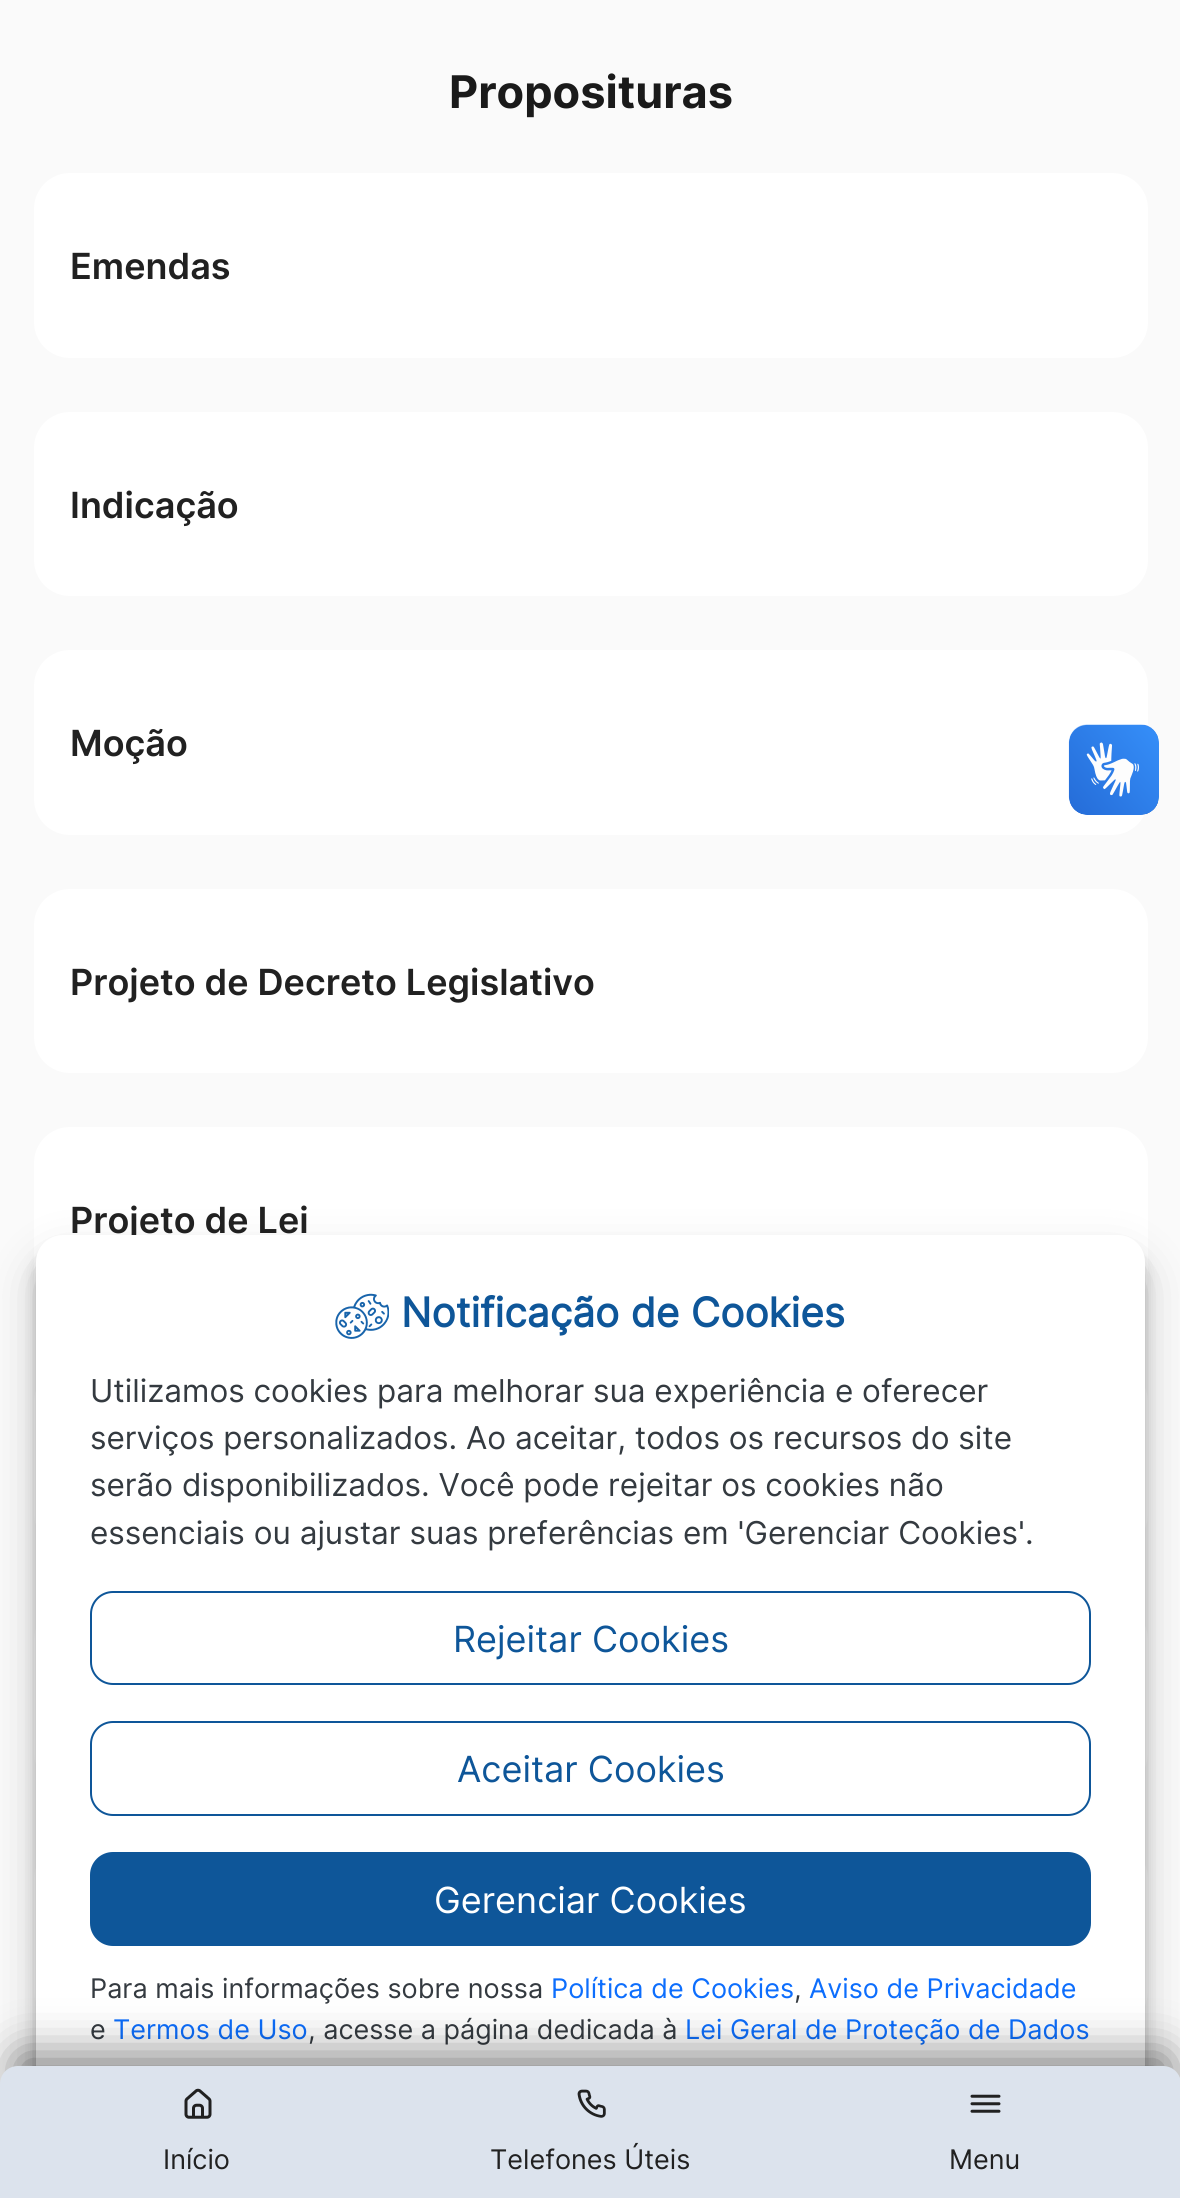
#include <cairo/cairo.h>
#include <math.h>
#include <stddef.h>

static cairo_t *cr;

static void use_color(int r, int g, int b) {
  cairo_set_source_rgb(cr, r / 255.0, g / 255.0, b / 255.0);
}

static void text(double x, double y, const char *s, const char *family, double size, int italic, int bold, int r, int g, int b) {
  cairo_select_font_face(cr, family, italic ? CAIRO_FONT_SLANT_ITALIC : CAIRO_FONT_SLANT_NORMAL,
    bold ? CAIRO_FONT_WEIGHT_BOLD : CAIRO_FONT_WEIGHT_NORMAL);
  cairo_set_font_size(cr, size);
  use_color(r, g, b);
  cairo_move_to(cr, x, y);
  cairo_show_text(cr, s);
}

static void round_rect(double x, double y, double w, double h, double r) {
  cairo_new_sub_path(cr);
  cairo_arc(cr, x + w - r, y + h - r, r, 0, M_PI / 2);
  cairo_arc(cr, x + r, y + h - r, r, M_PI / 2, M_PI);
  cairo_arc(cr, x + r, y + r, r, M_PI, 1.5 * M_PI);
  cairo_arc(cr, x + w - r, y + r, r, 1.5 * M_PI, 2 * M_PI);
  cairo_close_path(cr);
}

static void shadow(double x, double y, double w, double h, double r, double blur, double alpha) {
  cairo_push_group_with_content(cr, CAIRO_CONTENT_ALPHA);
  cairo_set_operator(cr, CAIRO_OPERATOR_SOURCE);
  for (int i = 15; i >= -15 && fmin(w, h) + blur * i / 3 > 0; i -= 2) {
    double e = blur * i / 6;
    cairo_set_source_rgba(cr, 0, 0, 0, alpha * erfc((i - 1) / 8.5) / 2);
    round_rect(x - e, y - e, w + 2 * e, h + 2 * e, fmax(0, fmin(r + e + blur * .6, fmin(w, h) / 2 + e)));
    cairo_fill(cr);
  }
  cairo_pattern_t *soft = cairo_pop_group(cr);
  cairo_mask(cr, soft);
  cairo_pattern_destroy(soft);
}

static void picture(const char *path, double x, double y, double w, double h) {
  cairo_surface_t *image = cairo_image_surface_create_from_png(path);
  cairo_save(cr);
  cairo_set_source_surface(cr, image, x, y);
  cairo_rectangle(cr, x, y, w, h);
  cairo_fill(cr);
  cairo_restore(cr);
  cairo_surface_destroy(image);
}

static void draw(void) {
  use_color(250, 250, 250);
  cairo_paint(cr);
  use_color(255, 255, 255);
  round_rect(34, 173, 1114, 185, 36);
  cairo_fill(cr);
  round_rect(34, 412, 1114, 184, 36);
  cairo_fill(cr);
  round_rect(34, 650, 1114, 185, 36);
  cairo_fill(cr);
  round_rect(34, 889, 1114, 184, 36);
  cairo_fill(cr);
  round_rect(34, 1127, 1114, 185, 36);
  cairo_fill(cr);
  round_rect(34, 1366, 1114, 184, 36);
  cairo_fill(cr);
  round_rect(34, 1604, 1114, 185, 36);
  cairo_fill(cr);
  round_rect(34, 1843, 1114, 184, 36);
  cairo_fill(cr);
  picture("img_01.png", 1068, 724, 91, 91);
  picture("img_02.png", 1069, 725, 90, 90);
  use_color(0, 0, 0);
  shadow(36, 1249, 1109, 909, 27, 7, 0.23);
  shadow(36, 1258, 1109, 909, 27, 22.5, 0.19);
  shadow(1044, 2084, 115, 114, 36, 22.5, 0.19);
  text(449, 108, "Proposituras", "Inter", 45, 0, 1, 26, 26, 26);
  text(70, 279, "Emendas", "Inter SemiBold", 36, 0, 0, 33, 33, 33);
  text(70, 518, "Indicação", "Inter SemiBold", 36, 0, 0, 33, 33, 33);
  text(70, 756, "Moção", "Inter SemiBold", 36, 0, 0, 33, 33, 33);
  text(70, 995, "Projeto de Decreto Legislativo", "Inter SemiBold", 36, 0, 0, 33, 33, 33);
  text(70, 1233, "Projeto de Lei", "Inter SemiBold", 36, 0, 0, 33, 33, 33);
  use_color(255, 255, 255);
  round_rect(36, 1235, 1109, 909, 27);
  cairo_fill(cr);
  picture("img_03.png", 335, 1293, 54, 46);
  text(401, 1327, "Notificação de Cookies", "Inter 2", 40.5, 0, 1, 14, 86, 153);
  text(90, 1402, "Utilizamos cookies para melhorar sua experiência e oferecer", "Inter", 31.5, 0, 0, 52, 58, 64);
  text(90, 1449, "serviços personalizados. Ao aceitar, todos os recursos do site", "Inter", 31.5, 0, 0, 52, 58, 64);
  text(90, 1496, "serão disponibilizados. Você pode rejeitar os cookies não", "Inter", 31.5, 0, 0, 52, 58, 64);
  text(90, 1544, "essenciais ou ajustar suas preferências em 'Gerenciar Cookies'.", "Inter", 31.5, 0, 0, 52, 58, 64);
  round_rect(91, 1592, 999, 92, 22);
  use_color(14, 86, 153);
  cairo_stroke(cr);
  text(453, 1652, "Rejeitar Cookies", "Inter", 36, 0, 0, 14, 86, 153);
  round_rect(91, 1722, 999, 93, 22);
  cairo_stroke(cr);
  text(457, 1782, "Aceitar Cookies", "Inter", 36, 0, 0, 14, 86, 153);
  round_rect(91, 1853, 999, 92, 22);
  cairo_fill_preserve(cr);
  cairo_stroke(cr);
  text(434, 1913, "Gerenciar Cookies", "Inter", 36, 0, 0, 255, 255, 255);
  text(90, 1998, "Para mais informações sobre nossa", "Inter", 27, 0, 0, 52, 58, 64);
  text(551, 1998, "Política de Cookies", "Inter", 27, 0, 0, 13, 110, 253);
  text(794, 1998, ",", "Inter", 27, 0, 0, 52, 58, 64);
  text(809, 1998, "Aviso de Privacidade", "Inter", 27, 0, 0, 13, 110, 253);
  text(90, 2039, "e", "Inter", 27, 0, 0, 52, 58, 64);
  text(113, 2039, "Termos de Uso", "Inter", 27, 0, 0, 13, 110, 253);
  text(308, 2039, ", acesse a página dedicada à", "Inter", 27, 0, 0, 52, 58, 64);
  text(685, 2039, "Lei Geral de Proteção de Dados", "Inter", 27, 0, 0, 13, 110, 253);
  use_color(0, 0, 0);
  shadow(16, 2054, 1154, 106, 5, 22.5, 0.49);
  use_color(220, 227, 237);
  cairo_new_path(cr);
  cairo_move_to(cr, 18, 2066);
  cairo_line_to(cr, 1163, 2066);
  cairo_curve_to(cr, 1173, 2066, 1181, 2074, 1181, 2084);
  cairo_line_to(cr, 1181, 2198);
  cairo_line_to(cr, 0, 2198);
  cairo_line_to(cr, 0, 2084);
  cairo_curve_to(cr, 0, 2074, 8, 2066, 18, 2066);
  cairo_close_path(cr);
  cairo_fill(cr);
  picture("img_04.png", 184, 2088, 28, 31);
  text(163, 2169, "Início", "Inter", 27, 0, 0, 33, 33, 33);
  picture("img_05.png", 577, 2089, 29, 29);
  text(490, 2169, "Telefones Úteis", "Inter", 27, 0, 0, 33, 33, 33);
  picture("img_06.png", 970, 2094, 31, 19);
  text(949, 2169, "Menu", "Inter", 27, 0, 0, 33, 33, 33);
}

int main(void) {
  cairo_surface_t *surface = cairo_image_surface_create(CAIRO_FORMAT_RGB24, 1180, 2198);
  cr = cairo_create(surface);
  cairo_font_options_t *options = cairo_font_options_create();
  cairo_font_options_set_hint_metrics(options, CAIRO_HINT_METRICS_OFF);
  cairo_font_options_set_hint_style(options, CAIRO_HINT_STYLE_NONE);
  cairo_set_font_options(cr, options);
  cairo_set_miter_limit(cr, 4);
  draw();
  cairo_surface_write_to_png(surface, "out.png");
  cairo_font_options_destroy(options);
  cairo_destroy(cr);
  cairo_surface_destroy(surface);
  return 0;
}
